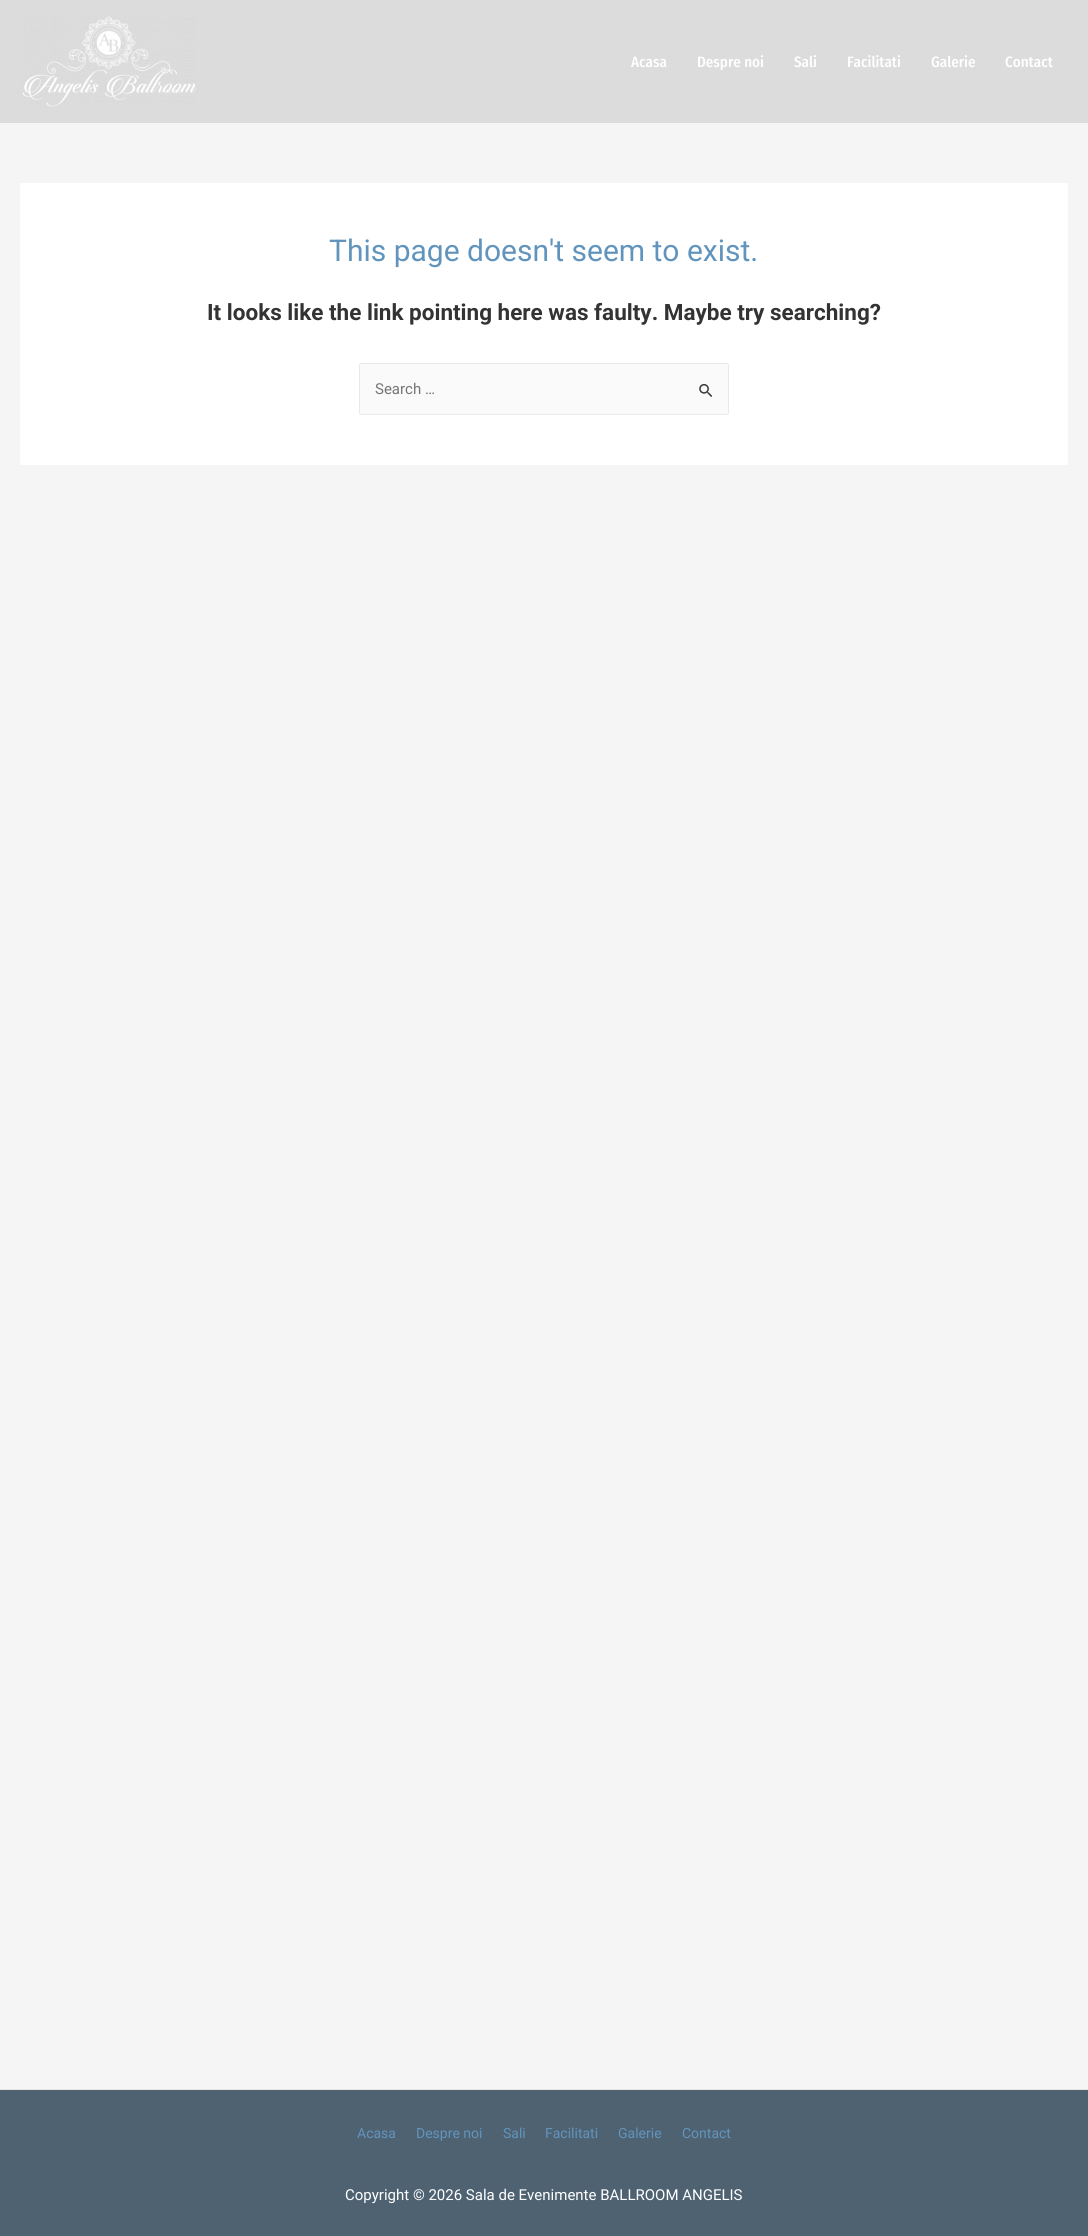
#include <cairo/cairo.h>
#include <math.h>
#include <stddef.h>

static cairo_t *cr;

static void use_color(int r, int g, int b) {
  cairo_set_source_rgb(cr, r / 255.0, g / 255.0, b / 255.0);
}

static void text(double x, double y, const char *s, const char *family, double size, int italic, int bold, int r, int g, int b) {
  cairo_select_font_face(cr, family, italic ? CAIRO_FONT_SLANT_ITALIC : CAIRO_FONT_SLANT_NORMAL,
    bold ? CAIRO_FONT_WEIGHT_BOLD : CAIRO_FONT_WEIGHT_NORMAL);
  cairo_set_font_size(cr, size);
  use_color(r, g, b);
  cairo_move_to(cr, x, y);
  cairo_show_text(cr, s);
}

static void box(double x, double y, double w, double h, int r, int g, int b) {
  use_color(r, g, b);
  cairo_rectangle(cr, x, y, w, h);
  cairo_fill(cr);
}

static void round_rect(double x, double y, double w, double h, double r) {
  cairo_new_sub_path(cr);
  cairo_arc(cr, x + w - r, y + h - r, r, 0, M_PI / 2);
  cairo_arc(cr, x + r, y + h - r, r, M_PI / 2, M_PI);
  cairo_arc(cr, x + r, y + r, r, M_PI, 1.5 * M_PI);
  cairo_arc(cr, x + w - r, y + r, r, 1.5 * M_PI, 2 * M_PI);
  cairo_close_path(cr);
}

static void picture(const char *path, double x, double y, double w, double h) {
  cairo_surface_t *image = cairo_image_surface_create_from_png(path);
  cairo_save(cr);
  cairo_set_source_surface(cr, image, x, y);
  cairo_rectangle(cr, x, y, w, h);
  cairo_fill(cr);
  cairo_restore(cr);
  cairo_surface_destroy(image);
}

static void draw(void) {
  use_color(245, 245, 245);
  cairo_paint(cr);
  box(0, 0, 1088, 123, 220, 220, 220);
  picture("img_01.png", 22, 16, 175, 91);
  box(20, 183, 1048, 282, 255, 255, 255);
  use_color(250, 250, 250);
  round_rect(359.5, 363.5, 369, 51, 1.5);
  cairo_fill_preserve(cr);
  use_color(234, 234, 234);
  cairo_set_line_width(cr, 1);
  cairo_stroke(cr);
  picture("img_02.png", 699, 383, 13, 14);
  box(0, 2090, 1088, 146, 79, 98, 114);
  box(0, 2089, 1088, 1, 230, 230, 230);
  text(631, 67, "Acasa", "Fira Sans Condensed Medium", 15, 0, 0, 255, 255, 255);
  text(697, 67, "Despre noi", "Fira Sans Condensed Medium", 15, 0, 0, 255, 255, 255);
  text(794, 67, "Sali", "Fira Sans Condensed Medium", 15, 0, 0, 255, 255, 255);
  text(847, 67, "Facilitati", "Fira Sans Condensed Medium", 15, 0, 0, 255, 255, 255);
  text(931, 67, "Galerie", "Fira Sans Condensed Medium", 15, 0, 0, 255, 255, 255);
  text(1005, 67, "Contact", "Fira Sans Condensed Medium", 15, 0, 0, 255, 255, 255);
  text(329, 261, "This page doesn't seem to exist.", "Roboto", 30, 0, 0, 97, 148, 189);
  text(207, 320, "It looks like the link pointing here was faulty. Maybe try searching?", "Roboto", 22.5, 0, 1, 51, 51, 51);
  text(375, 394, "Search …", "Roboto", 15, 0, 0, 117, 117, 117);
  text(357, 2138, "Acasa", "Roboto", 14, 0, 0, 97, 148, 189);
  text(416, 2138, "Despre noi", "Roboto", 14, 0, 0, 97, 148, 189);
  text(503, 2138, "Sali", "Roboto", 14, 0, 0, 97, 148, 189);
  text(545, 2138, "Facilitati", "Roboto", 14, 0, 0, 97, 148, 189);
  text(618, 2138, "Galerie", "Roboto", 14, 0, 0, 97, 148, 189);
  text(682, 2138, "Contact", "Roboto", 14, 0, 0, 97, 148, 189);
  text(345, 2200, "Copyright © 2026 Sala de Evenimente BALLROOM ANGELIS", "Roboto", 15, 0, 0, 255, 255, 255);
}

int main(void) {
  cairo_surface_t *surface = cairo_image_surface_create(CAIRO_FORMAT_RGB24, 1088, 2236);
  cr = cairo_create(surface);
  cairo_font_options_t *options = cairo_font_options_create();
  cairo_font_options_set_hint_metrics(options, CAIRO_HINT_METRICS_OFF);
  cairo_font_options_set_hint_style(options, CAIRO_HINT_STYLE_NONE);
  cairo_set_font_options(cr, options);
  cairo_set_miter_limit(cr, 4);
  draw();
  cairo_surface_write_to_png(surface, "out.png");
  cairo_font_options_destroy(options);
  cairo_destroy(cr);
  cairo_surface_destroy(surface);
  return 0;
}
